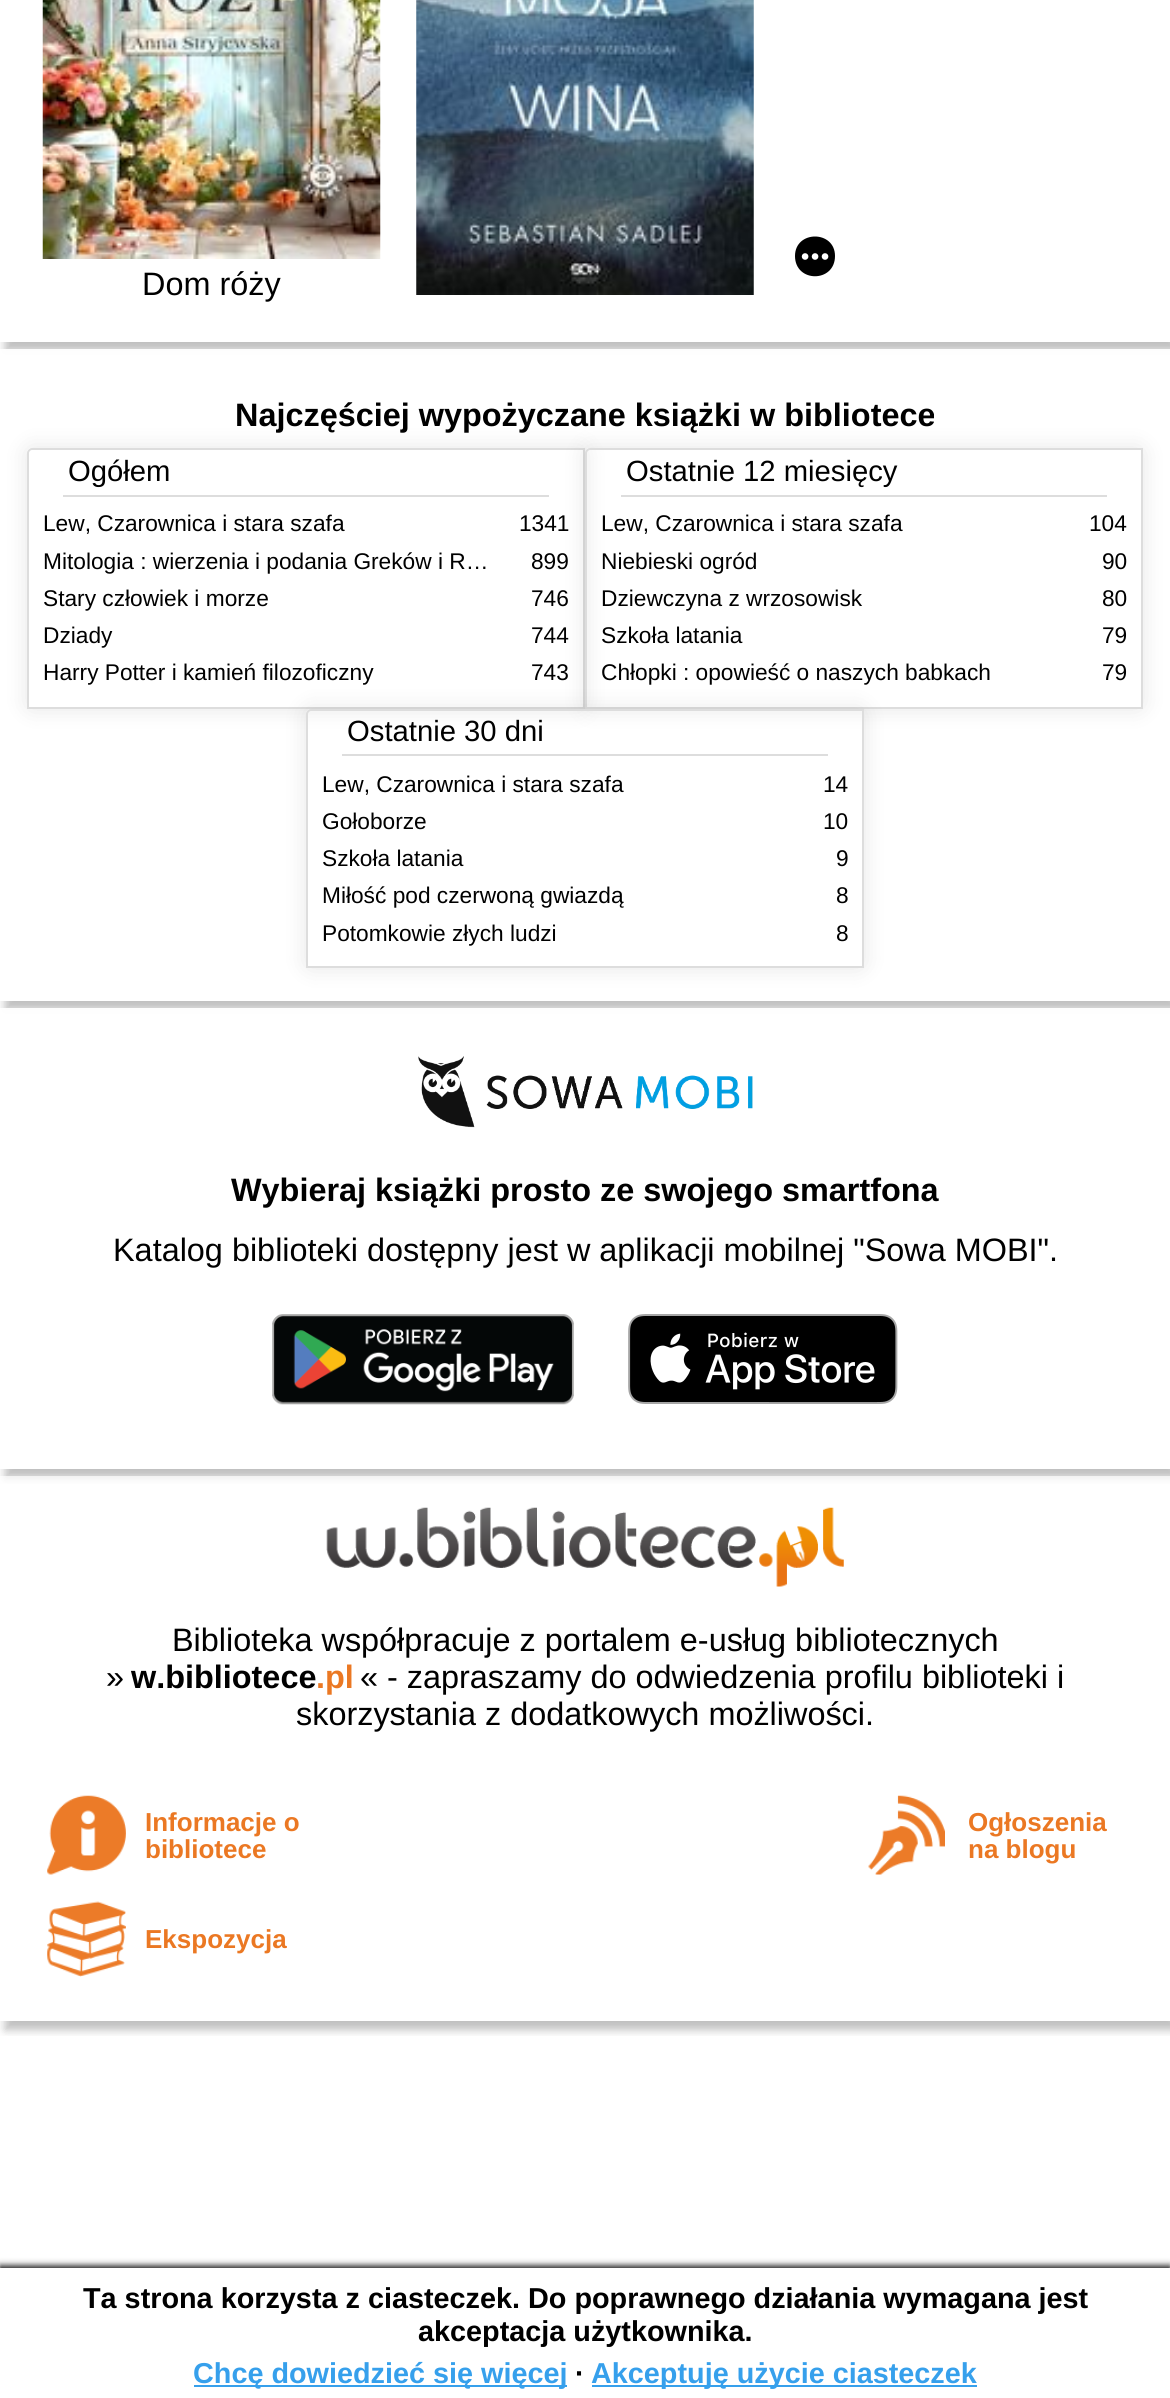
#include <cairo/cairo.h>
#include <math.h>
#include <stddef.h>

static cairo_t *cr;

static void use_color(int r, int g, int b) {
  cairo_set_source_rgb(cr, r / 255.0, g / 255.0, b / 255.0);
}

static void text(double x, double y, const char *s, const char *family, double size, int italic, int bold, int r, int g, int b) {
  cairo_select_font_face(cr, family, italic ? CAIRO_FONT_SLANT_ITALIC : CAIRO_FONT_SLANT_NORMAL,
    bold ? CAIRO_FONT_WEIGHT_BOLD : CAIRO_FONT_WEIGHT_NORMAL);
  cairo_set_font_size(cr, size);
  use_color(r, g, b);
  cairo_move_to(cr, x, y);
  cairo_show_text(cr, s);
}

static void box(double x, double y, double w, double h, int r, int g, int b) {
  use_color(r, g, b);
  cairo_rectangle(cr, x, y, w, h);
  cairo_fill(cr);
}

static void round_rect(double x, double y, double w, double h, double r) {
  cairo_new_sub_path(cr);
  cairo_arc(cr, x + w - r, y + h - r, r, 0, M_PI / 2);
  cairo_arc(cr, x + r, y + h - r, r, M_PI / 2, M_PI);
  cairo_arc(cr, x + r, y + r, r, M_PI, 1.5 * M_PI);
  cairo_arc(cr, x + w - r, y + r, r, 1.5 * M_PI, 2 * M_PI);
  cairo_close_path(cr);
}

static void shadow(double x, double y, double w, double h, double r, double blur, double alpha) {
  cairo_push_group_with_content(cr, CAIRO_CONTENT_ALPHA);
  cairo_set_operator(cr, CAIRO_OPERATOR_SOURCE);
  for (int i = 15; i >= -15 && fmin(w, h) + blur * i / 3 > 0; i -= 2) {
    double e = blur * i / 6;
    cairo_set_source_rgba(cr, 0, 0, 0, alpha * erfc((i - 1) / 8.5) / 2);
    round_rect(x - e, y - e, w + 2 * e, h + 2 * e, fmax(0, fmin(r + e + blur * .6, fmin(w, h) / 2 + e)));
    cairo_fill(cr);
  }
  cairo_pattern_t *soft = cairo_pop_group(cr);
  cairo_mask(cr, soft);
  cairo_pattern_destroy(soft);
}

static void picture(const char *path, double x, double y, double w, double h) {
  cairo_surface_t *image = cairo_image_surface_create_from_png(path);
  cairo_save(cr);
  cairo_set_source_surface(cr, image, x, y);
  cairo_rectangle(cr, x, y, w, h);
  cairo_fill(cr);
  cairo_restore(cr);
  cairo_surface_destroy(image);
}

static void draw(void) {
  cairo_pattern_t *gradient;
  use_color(255, 255, 255);
  cairo_paint(cr);
  cairo_save(cr);
  cairo_rectangle(cr, 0, 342, 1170, 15);
  cairo_clip(cr);
  use_color(0, 0, 0);
  shadow(5, -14, 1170, 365, 0, 4.5, 0.25);
  cairo_restore(cr);
  picture("img_01.png", 416, 0, 338, 295);
  use_color(0, 0, 0);
  cairo_new_path(cr);
  cairo_move_to(cr, 795, 256);
  cairo_curve_to(cr, 795, 230, 835, 230, 835, 256);
  cairo_curve_to(cr, 835, 283, 795, 283, 795, 256);
  cairo_close_path(cr);
  cairo_fill(cr);
  picture("img_02.png", 801, 253, 28, 7);
  picture("img_03.png", 42, 0, 339, 259);
  cairo_save(cr);
  cairo_rectangle(cr, 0, 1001, 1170, 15);
  cairo_clip(cr);
  use_color(0, 0, 0);
  shadow(5, 358, 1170, 652, 0, 4.5, 0.25);
  cairo_restore(cr);
  cairo_set_source_rgba(cr, 1, 1, 1, 0.95);
  cairo_rectangle(cr, 0, 349, 1170, 10);
  cairo_fill(cr);
  cairo_save(cr);
  cairo_set_fill_rule(cr, CAIRO_FILL_RULE_EVEN_ODD);
  cairo_new_path(cr);
  cairo_move_to(cr, 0, 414);
  cairo_line_to(cr, 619, 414);
  cairo_line_to(cr, 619, 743);
  cairo_line_to(cr, 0, 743);
  cairo_close_path(cr);
  cairo_move_to(cr, 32, 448);
  cairo_line_to(cr, 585, 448);
  cairo_line_to(cr, 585, 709);
  cairo_line_to(cr, 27, 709);
  cairo_line_to(cr, 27, 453);
  cairo_curve_to(cr, 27, 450, 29, 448, 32, 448);
  cairo_close_path(cr);
  cairo_clip(cr);
  use_color(0, 0, 0);
  shadow(27, 448, 558, 261, 5, 11, 0.1);
  cairo_restore(cr);
  cairo_new_path(cr);
  cairo_move_to(cr, 32, 449);
  cairo_line_to(cr, 584, 449);
  cairo_line_to(cr, 584, 708);
  cairo_line_to(cr, 28, 708);
  cairo_line_to(cr, 28, 453);
  cairo_curve_to(cr, 28, 451, 30, 449, 32, 449);
  cairo_close_path(cr);
  use_color(221, 221, 221);
  cairo_stroke(cr);
  box(63, 495, 486, 2, 221, 221, 221);
  cairo_save(cr);
  cairo_set_fill_rule(cr, CAIRO_FILL_RULE_EVEN_ODD);
  cairo_new_path(cr);
  cairo_move_to(cr, 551, 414);
  cairo_line_to(cr, 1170, 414);
  cairo_line_to(cr, 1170, 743);
  cairo_line_to(cr, 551, 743);
  cairo_close_path(cr);
  cairo_move_to(cr, 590, 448);
  cairo_line_to(cr, 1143, 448);
  cairo_line_to(cr, 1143, 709);
  cairo_line_to(cr, 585, 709);
  cairo_line_to(cr, 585, 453);
  cairo_curve_to(cr, 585, 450, 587, 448, 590, 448);
  cairo_close_path(cr);
  cairo_clip(cr);
  use_color(0, 0, 0);
  shadow(585, 448, 558, 261, 5, 11, 0.1);
  cairo_restore(cr);
  cairo_new_path(cr);
  cairo_move_to(cr, 590, 449);
  cairo_line_to(cr, 1142, 449);
  cairo_line_to(cr, 1142, 708);
  cairo_line_to(cr, 586, 708);
  cairo_line_to(cr, 586, 453);
  cairo_curve_to(cr, 586, 451, 588, 449, 590, 449);
  cairo_close_path(cr);
  cairo_stroke(cr);
  box(621, 495, 486, 2, 221, 221, 221);
  cairo_save(cr);
  cairo_set_fill_rule(cr, CAIRO_FILL_RULE_EVEN_ODD);
  cairo_new_path(cr);
  cairo_move_to(cr, 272, 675);
  cairo_line_to(cr, 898, 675);
  cairo_line_to(cr, 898, 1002);
  cairo_line_to(cr, 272, 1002);
  cairo_close_path(cr);
  cairo_move_to(cr, 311, 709);
  cairo_line_to(cr, 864, 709);
  cairo_line_to(cr, 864, 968);
  cairo_line_to(cr, 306, 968);
  cairo_line_to(cr, 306, 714);
  cairo_curve_to(cr, 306, 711, 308, 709, 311, 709);
  cairo_close_path(cr);
  cairo_clip(cr);
  use_color(0, 0, 0);
  shadow(306, 709, 558, 259, 5, 11, 0.1);
  cairo_restore(cr);
  cairo_new_path(cr);
  cairo_move_to(cr, 311, 710);
  cairo_line_to(cr, 863, 710);
  cairo_line_to(cr, 863, 967);
  cairo_line_to(cr, 307, 967);
  cairo_line_to(cr, 307, 714);
  cairo_curve_to(cr, 307, 712, 309, 710, 311, 710);
  cairo_close_path(cr);
  cairo_stroke(cr);
  box(342, 754, 486, 2, 221, 221, 221);
  cairo_save(cr);
  cairo_rectangle(cr, 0, 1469, 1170, 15);
  cairo_clip(cr);
  use_color(0, 0, 0);
  shadow(5, 1017, 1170, 461, 0, 4.5, 0.25);
  cairo_restore(cr);
  cairo_set_source_rgba(cr, 1, 1, 1, 0.95);
  cairo_rectangle(cr, 0, 1008, 1170, 10);
  cairo_fill(cr);
  picture("img_04.png", 418, 1056, 335, 72);
  picture("img_05.png", 272, 1314, 302, 91);
  picture("img_06.png", 628, 1314, 270, 90);
  cairo_save(cr);
  cairo_rectangle(cr, 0, 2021, 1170, 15);
  cairo_clip(cr);
  use_color(0, 0, 0);
  shadow(5, 1485, 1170, 545, 0, 4.5, 0.25);
  cairo_restore(cr);
  gradient = cairo_pattern_create_linear(585, 2021, 585, 1476);
  cairo_pattern_add_color_stop_rgba(gradient, 0, 1, 1, 1, 1);
  cairo_pattern_add_color_stop_rgba(gradient, 0.5, 1, 1, 1, 1);
  cairo_pattern_add_color_stop_rgba(gradient, 1, 1, 1, 1, 0.7);
  cairo_set_source(cr, gradient);
  cairo_pattern_destroy(gradient);
  cairo_rectangle(cr, 0, 1476, 1170, 545);
  cairo_fill(cr);
  picture("img_07.png", 326, 1507, 518, 80);
  picture("img_08.png", 47, 1795, 79, 80);
  picture("img_09.png", 868, 1795, 77, 80);
  picture("img_10.png", 47, 1901, 79, 76);
  use_color(0, 0, 0);
  shadow(0, 2266, 1170, 130, 0, 3.5, 1);
  box(0, 2268, 1170, 130, 255, 255, 255);
  box(194, 2385, 373, 2, 54, 160, 236);
  box(592, 2385, 385, 2, 54, 160, 236);
  text(142, 295, "Dom róży", "Liberation Sans", 32.4, 0, 0, 0, 0, 0);
  text(235, 426, "Najczęściej wypożyczane książki w bibliotece", "Liberation Sans", 32.4, 0, 1, 0, 0, 0);
  text(68, 481, "Ogółem", "Liberation Sans", 29.25, 0, 0, 0, 0, 0);
  text(43, 531, "Lew, Czarownica i stara szafa", "Liberation Sans", 22.7, 0, 0, 0, 0, 0);
  text(519, 531, "1341", "Liberation Sans", 22.7, 0, 0, 0, 0, 0);
  text(43, 569, "Mitologia : wierzenia i podania Greków i R…", "Liberation Sans", 22.7, 0, 0, 0, 0, 0);
  text(531, 569, "899", "Liberation Sans", 22.7, 0, 0, 0, 0, 0);
  text(43, 606, "Stary człowiek i morze", "Liberation Sans", 22.7, 0, 0, 0, 0, 0);
  text(531, 606, "746", "Liberation Sans", 22.7, 0, 0, 0, 0, 0);
  text(43, 643, "Dziady", "Liberation Sans", 22.7, 0, 0, 0, 0, 0);
  text(531, 643, "744", "Liberation Sans", 22.7, 0, 0, 0, 0, 0);
  text(43, 680, "Harry Potter i kamień filozoficzny", "Liberation Sans", 22.7, 0, 0, 0, 0, 0);
  text(531, 680, "743", "Liberation Sans", 22.7, 0, 0, 0, 0, 0);
  text(626, 481, "Ostatnie 12 miesięcy", "Liberation Sans", 29.25, 0, 0, 0, 0, 0);
  text(601, 531, "Lew, Czarownica i stara szafa", "Liberation Sans", 22.7, 0, 0, 0, 0, 0);
  text(1089, 531, "104", "Liberation Sans", 22.7, 0, 0, 0, 0, 0);
  text(601, 569, "Niebieski ogród", "Liberation Sans", 22.7, 0, 0, 0, 0, 0);
  text(1102, 569, "90", "Liberation Sans", 22.7, 0, 0, 0, 0, 0);
  text(601, 606, "Dziewczyna z wrzosowisk", "Liberation Sans", 22.7, 0, 0, 0, 0, 0);
  text(1102, 606, "80", "Liberation Sans", 22.7, 0, 0, 0, 0, 0);
  text(601, 643, "Szkoła latania", "Liberation Sans", 22.7, 0, 0, 0, 0, 0);
  text(1102, 643, "79", "Liberation Sans", 22.7, 0, 0, 0, 0, 0);
  text(601, 680, "Chłopki : opowieść o naszych babkach", "Liberation Sans", 22.7, 0, 0, 0, 0, 0);
  text(1102, 680, "79", "Liberation Sans", 22.7, 0, 0, 0, 0, 0);
  text(347, 741, "Ostatnie 30 dni", "Liberation Sans", 29.25, 0, 0, 0, 0, 0);
  text(322, 792, "Lew, Czarownica i stara szafa", "Liberation Sans", 22.7, 0, 0, 0, 0, 0);
  text(823, 792, "14", "Liberation Sans", 22.7, 0, 0, 0, 0, 0);
  text(322, 829, "Gołoborze", "Liberation Sans", 22.7, 0, 0, 0, 0, 0);
  text(823, 829, "10", "Liberation Sans", 22.7, 0, 0, 0, 0, 0);
  text(322, 866, "Szkoła latania", "Liberation Sans", 22.7, 0, 0, 0, 0, 0);
  text(836, 866, "9", "Liberation Sans", 22.7, 0, 0, 0, 0, 0);
  text(322, 903, "Miłość pod czerwoną gwiazdą", "Liberation Sans", 22.7, 0, 0, 0, 0, 0);
  text(836, 903, "8", "Liberation Sans", 22.7, 0, 0, 0, 0, 0);
  text(322, 941, "Potomkowie złych ludzi", "Liberation Sans", 22.7, 0, 0, 0, 0, 0);
  text(836, 941, "8", "Liberation Sans", 22.7, 0, 0, 0, 0, 0);
  text(231, 1201, "Wybieraj książki prosto ze swojego smartfona", "Liberation Sans", 32.4, 0, 1, 0, 0, 0);
  text(113, 1261, "Katalog biblioteki dostępny jest w aplikacji mobilnej \"Sowa MOBI\".", "Liberation Sans", 32.4, 0, 0, 0, 0, 0);
  text(172, 1651, "Biblioteka współpracuje z portalem e-usług bibliotecznych", "Liberation Sans", 32.4, 0, 0, 0, 0, 0);
  text(106, 1688, "»", "Liberation Sans", 32.4, 0, 0, 0, 0, 0);
  text(131, 1688, "w.bibliotece", "Liberation Sans", 32.4, 0, 1, 0, 0, 0);
  text(316, 1688, ".pl", "Liberation Sans", 32.4, 0, 1, 235, 120, 35);
  text(360, 1688, "« - zapraszamy do odwiedzenia profilu biblioteki i", "Liberation Sans", 32.4, 0, 0, 0, 0, 0);
  text(296, 1725, "skorzystania z dodatkowych możliwości.", "Liberation Sans", 32.4, 0, 0, 0, 0, 0);
  text(145, 1831, "Informacje o", "Liberation Sans", 26, 0, 1, 235, 120, 35);
  text(145, 1858, "bibliotece", "Liberation Sans", 26, 0, 1, 235, 120, 35);
  text(968, 1831, "Ogłoszenia", "Liberation Sans", 26, 0, 1, 235, 120, 35);
  text(968, 1858, "na blogu", "Liberation Sans", 26, 0, 1, 235, 120, 35);
  text(145, 1948, "Ekspozycja", "Liberation Sans", 26, 0, 1, 235, 120, 35);
  text(83, 2308, "Ta strona korzysta z ciasteczek. Do poprawnego działania wymagana jest", "Liberation Sans", 28.8, 0, 1, 0, 0, 0);
  text(418, 2341, "akceptacja użytkownika.", "Liberation Sans", 28.8, 0, 1, 0, 0, 0);
  text(193, 2383, "Chcę dowiedzieć się więcej", "Liberation Sans", 28.8, 0, 1, 54, 160, 236);
  text(575, 2383, "∙", "Liberation Sans", 28.8, 0, 1, 0, 0, 0);
  text(591, 2383, "Akceptuję użycie ciasteczek", "Liberation Sans", 28.8, 0, 1, 54, 160, 236);
}

int main(void) {
  cairo_surface_t *surface = cairo_image_surface_create(CAIRO_FORMAT_RGB24, 1170, 2398);
  cr = cairo_create(surface);
  cairo_font_options_t *options = cairo_font_options_create();
  cairo_font_options_set_hint_metrics(options, CAIRO_HINT_METRICS_OFF);
  cairo_font_options_set_hint_style(options, CAIRO_HINT_STYLE_NONE);
  cairo_set_font_options(cr, options);
  cairo_set_miter_limit(cr, 4);
  draw();
  cairo_surface_write_to_png(surface, "out.png");
  cairo_font_options_destroy(options);
  cairo_destroy(cr);
  cairo_surface_destroy(surface);
  return 0;
}
